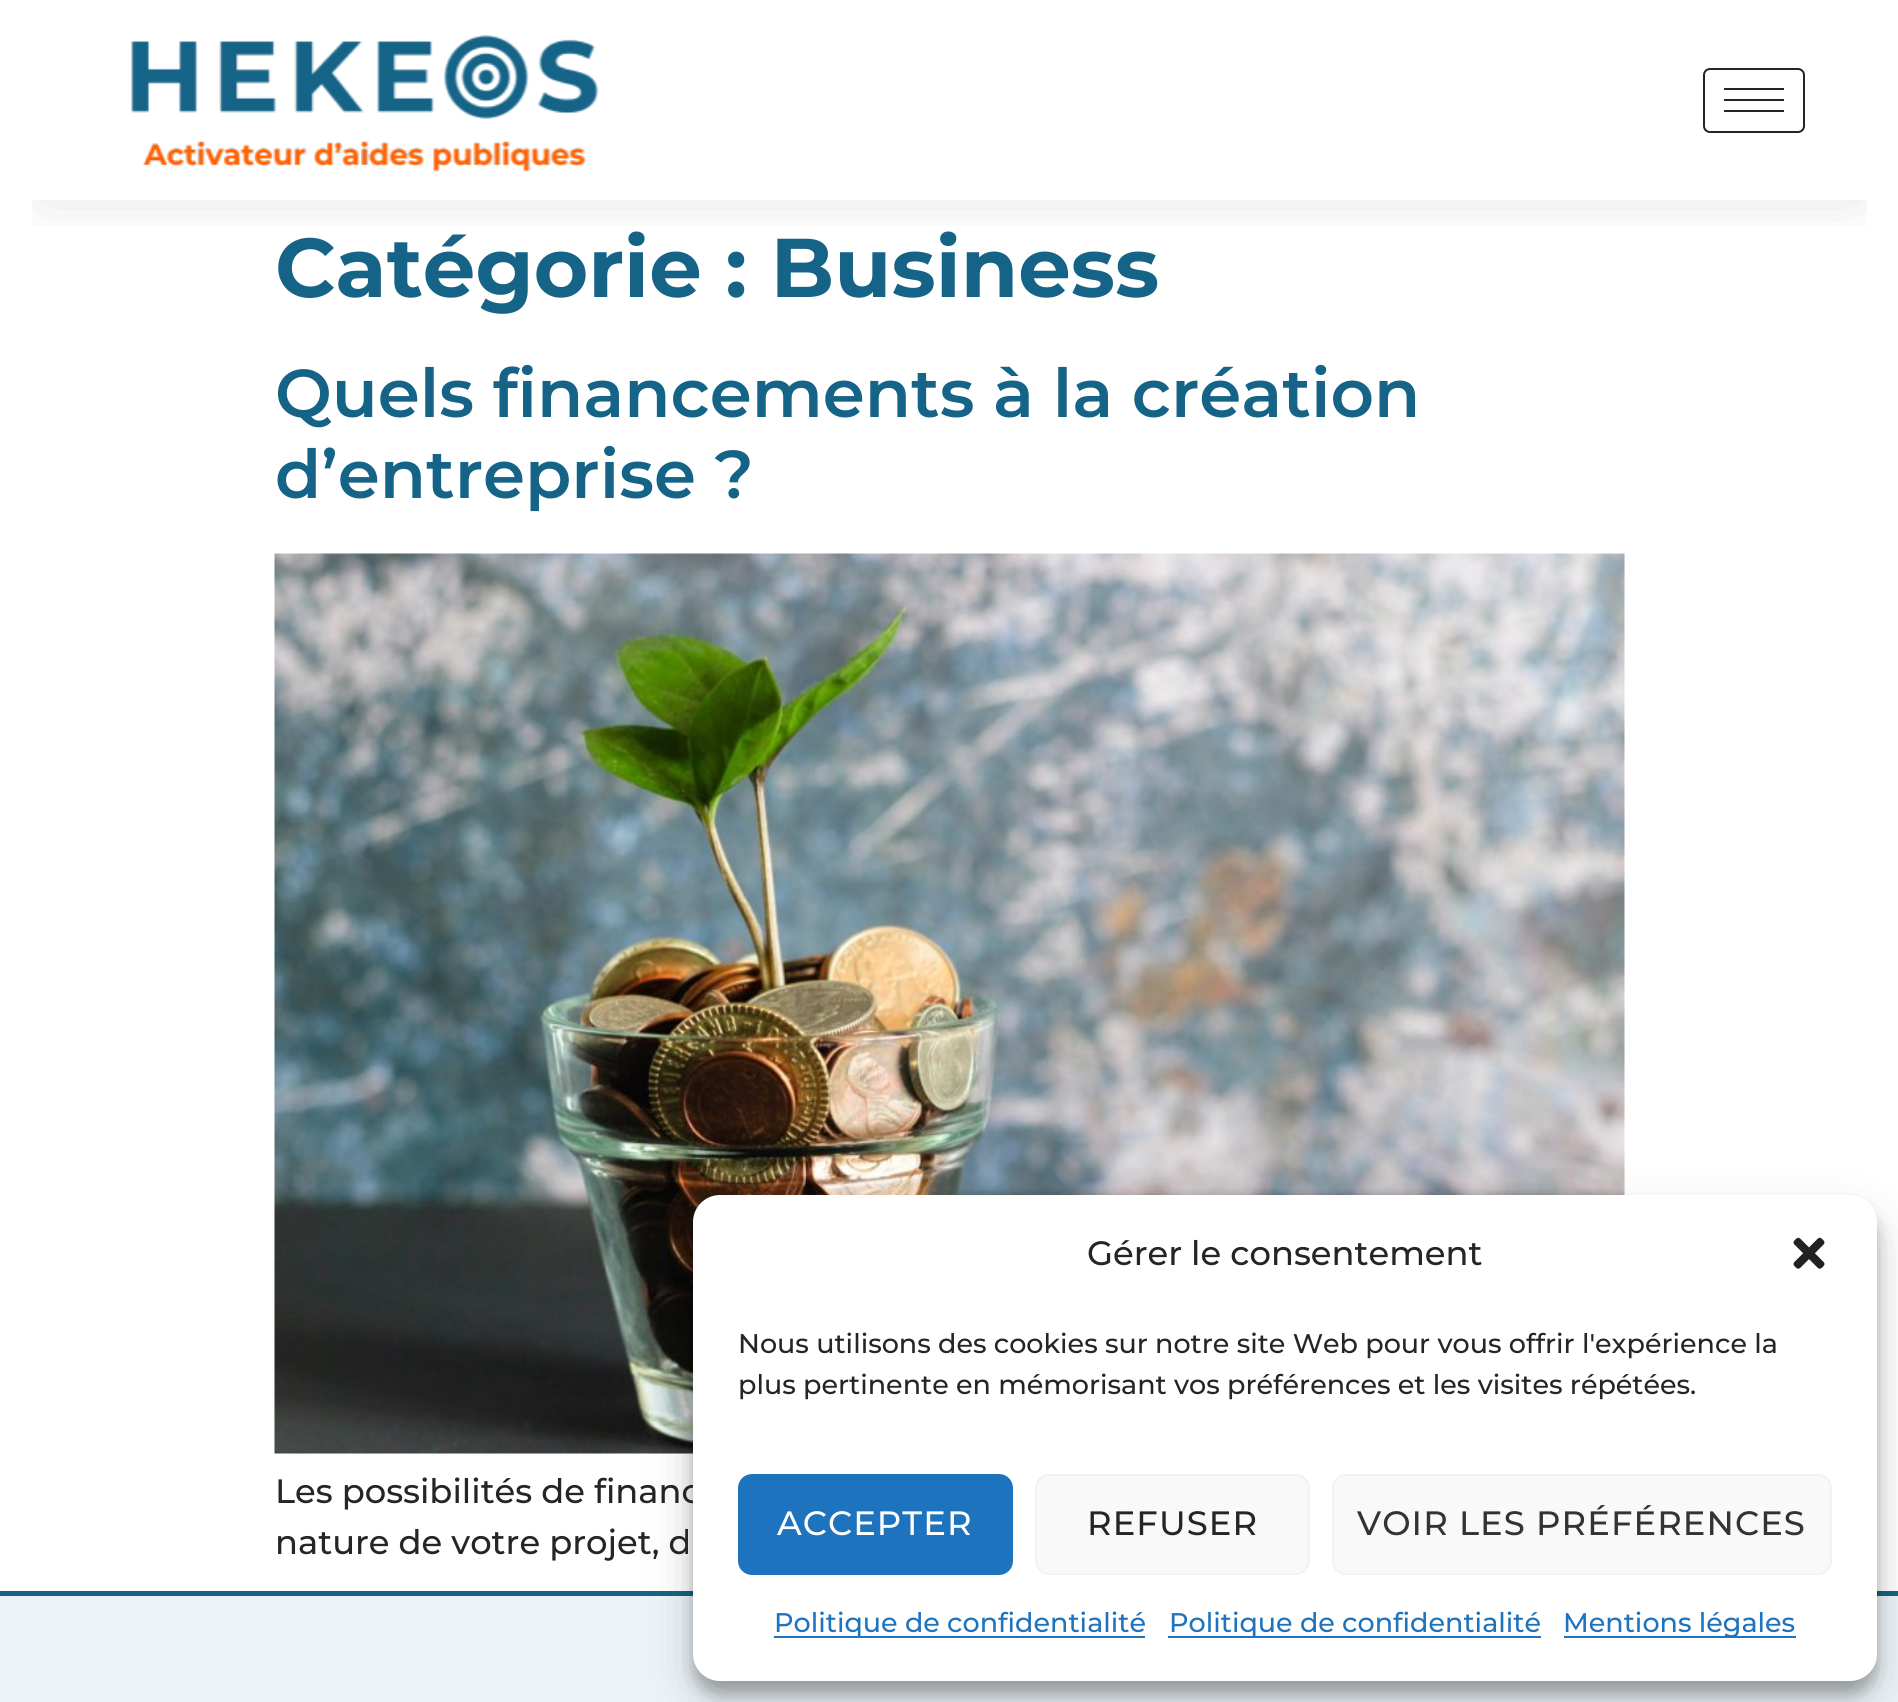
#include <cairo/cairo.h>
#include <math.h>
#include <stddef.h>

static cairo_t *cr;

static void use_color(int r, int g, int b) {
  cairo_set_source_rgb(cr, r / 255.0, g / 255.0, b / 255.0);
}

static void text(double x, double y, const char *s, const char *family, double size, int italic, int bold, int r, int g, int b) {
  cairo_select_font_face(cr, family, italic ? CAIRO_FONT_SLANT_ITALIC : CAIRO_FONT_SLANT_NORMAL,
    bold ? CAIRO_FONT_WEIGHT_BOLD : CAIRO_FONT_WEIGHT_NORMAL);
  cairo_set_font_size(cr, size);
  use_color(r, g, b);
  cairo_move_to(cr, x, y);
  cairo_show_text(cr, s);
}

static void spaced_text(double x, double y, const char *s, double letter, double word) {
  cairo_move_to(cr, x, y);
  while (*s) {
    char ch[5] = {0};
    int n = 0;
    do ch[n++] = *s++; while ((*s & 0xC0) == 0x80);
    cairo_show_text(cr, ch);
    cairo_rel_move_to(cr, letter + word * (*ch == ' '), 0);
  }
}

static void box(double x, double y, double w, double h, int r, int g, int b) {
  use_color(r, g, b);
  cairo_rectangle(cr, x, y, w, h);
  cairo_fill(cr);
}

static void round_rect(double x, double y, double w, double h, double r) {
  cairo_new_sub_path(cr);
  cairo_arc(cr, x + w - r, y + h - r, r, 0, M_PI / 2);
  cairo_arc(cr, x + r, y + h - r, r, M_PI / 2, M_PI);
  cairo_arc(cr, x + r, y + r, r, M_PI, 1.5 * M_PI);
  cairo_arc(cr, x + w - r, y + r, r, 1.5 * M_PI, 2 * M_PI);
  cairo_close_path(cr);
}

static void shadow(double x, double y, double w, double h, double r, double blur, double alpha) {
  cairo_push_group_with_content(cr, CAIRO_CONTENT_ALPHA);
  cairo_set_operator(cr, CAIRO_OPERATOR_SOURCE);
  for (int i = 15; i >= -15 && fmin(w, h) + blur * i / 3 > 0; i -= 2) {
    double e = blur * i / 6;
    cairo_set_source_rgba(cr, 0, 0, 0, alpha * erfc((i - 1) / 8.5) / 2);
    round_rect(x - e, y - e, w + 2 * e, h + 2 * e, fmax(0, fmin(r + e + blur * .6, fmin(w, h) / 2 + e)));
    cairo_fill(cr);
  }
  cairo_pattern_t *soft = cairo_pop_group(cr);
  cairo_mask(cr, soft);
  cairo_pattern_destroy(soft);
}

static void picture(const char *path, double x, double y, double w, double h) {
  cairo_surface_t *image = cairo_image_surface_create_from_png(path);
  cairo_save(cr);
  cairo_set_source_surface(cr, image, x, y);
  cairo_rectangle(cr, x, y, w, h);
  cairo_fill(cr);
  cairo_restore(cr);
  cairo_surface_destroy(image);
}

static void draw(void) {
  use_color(255, 255, 255);
  cairo_paint(cr);
  cairo_save(cr);
  cairo_rectangle(cr, 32, 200, 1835, 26);
  cairo_clip(cr);
  use_color(0, 0, 0);
  shadow(45, 72, 1809, 110, 0, 34, 0.2);
  cairo_restore(cr);
  picture("img_01.png", 131, 35, 468, 137);
  round_rect(1704, 69, 100, 63, 6);
  use_color(37, 37, 37);
  cairo_stroke(cr);
  box(1724, 88, 60, 2, 37, 37, 37);
  box(1724, 99, 60, 2, 37, 37, 37);
  box(1724, 110, 60, 2, 37, 37, 37);
  picture("img_02.png", 274, 553, 1351, 901);
  box(0, 1596, 1898, 106, 236, 244, 248);
  box(0, 1591, 1898, 5, 21, 99, 135);
  use_color(0, 0, 0);
  shadow(693, 1208, 1184, 486, 27, 7, 0.23);
  shadow(693, 1217, 1184, 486, 27, 22.5, 0.19);
  text(275, 297, "Catégorie : Business", "Montserrat", 83.25, 0, 1, 21, 99, 135);
  text(275, 417, "Quels financements à la création", "Montserrat SemiBold", 67.5, 0, 0, 21, 99, 135);
  text(275, 498, "d’entreprise ?", "Montserrat SemiBold", 67.5, 0, 0, 21, 99, 135);
  text(275, 1503, "Les possibilités de financ", "Montserrat Medium", 33.75, 0, 0, 37, 37, 37);
  text(275, 1554, "nature de votre projet, d", "Montserrat Medium", 33.75, 0, 0, 37, 37, 37);
  use_color(255, 255, 255);
  round_rect(693, 1195, 1184, 486, 27);
  cairo_fill(cr);
  text(1087, 1265, "Gérer le consentement", "Montserrat Medium", 33.75, 0, 0, 37, 37, 37);
  picture("img_03.png", 1793, 1237, 32, 32);
  text(738, 1353, "Nous utilisons des cookies sur notre site Web pour vous offrir l'expérience la", "Montserrat Medium", 27, 0, 0, 37, 37, 37);
  text(738, 1394, "plus pertinente en mémorisant vos préférences et les visites répétées.", "Montserrat Medium", 27, 0, 0, 37, 37, 37);
  use_color(30, 115, 190);
  round_rect(739, 1475, 273, 99, 13);
  cairo_fill_preserve(cr);
  cairo_stroke(cr);
  cairo_set_font_size(cr, 33.75);
  use_color(255, 255, 255);
  spaced_text(777, 1535, "ACCEPTER", 1.1, 0);
  use_color(249, 249, 249);
  round_rect(1036, 1475, 273, 99, 13);
  cairo_fill_preserve(cr);
  use_color(242, 242, 242);
  cairo_stroke(cr);
  use_color(37, 37, 37);
  spaced_text(1087, 1535, "REFUSER", 1.1, 0);
  use_color(249, 249, 249);
  round_rect(1333, 1475, 498, 99, 13);
  cairo_fill_preserve(cr);
  use_color(242, 242, 242);
  cairo_stroke(cr);
  use_color(51, 51, 51);
  spaced_text(1357, 1535, "VOIR LES PRÉFÉRENCES", 1.1, 0);
  box(774, 1636, 371, 2, 30, 115, 190);
  text(774, 1632, "Politique de confidentialité", "Montserrat Medium", 27, 0, 0, 30, 115, 190);
  box(1168, 1636, 373, 2, 30, 115, 190);
  text(1169, 1632, "Politique de confidentialité", "Montserrat Medium", 27, 0, 0, 30, 115, 190);
  box(1564, 1636, 232, 2, 30, 115, 190);
  text(1563, 1632, "Mentions légales", "Montserrat Medium", 27, 0, 0, 30, 115, 190);
}

int main(void) {
  cairo_surface_t *surface = cairo_image_surface_create(CAIRO_FORMAT_RGB24, 1898, 1702);
  cr = cairo_create(surface);
  cairo_font_options_t *options = cairo_font_options_create();
  cairo_font_options_set_hint_metrics(options, CAIRO_HINT_METRICS_OFF);
  cairo_font_options_set_hint_style(options, CAIRO_HINT_STYLE_NONE);
  cairo_set_font_options(cr, options);
  cairo_set_miter_limit(cr, 4);
  draw();
  cairo_surface_write_to_png(surface, "out.png");
  cairo_font_options_destroy(options);
  cairo_destroy(cr);
  cairo_surface_destroy(surface);
  return 0;
}
